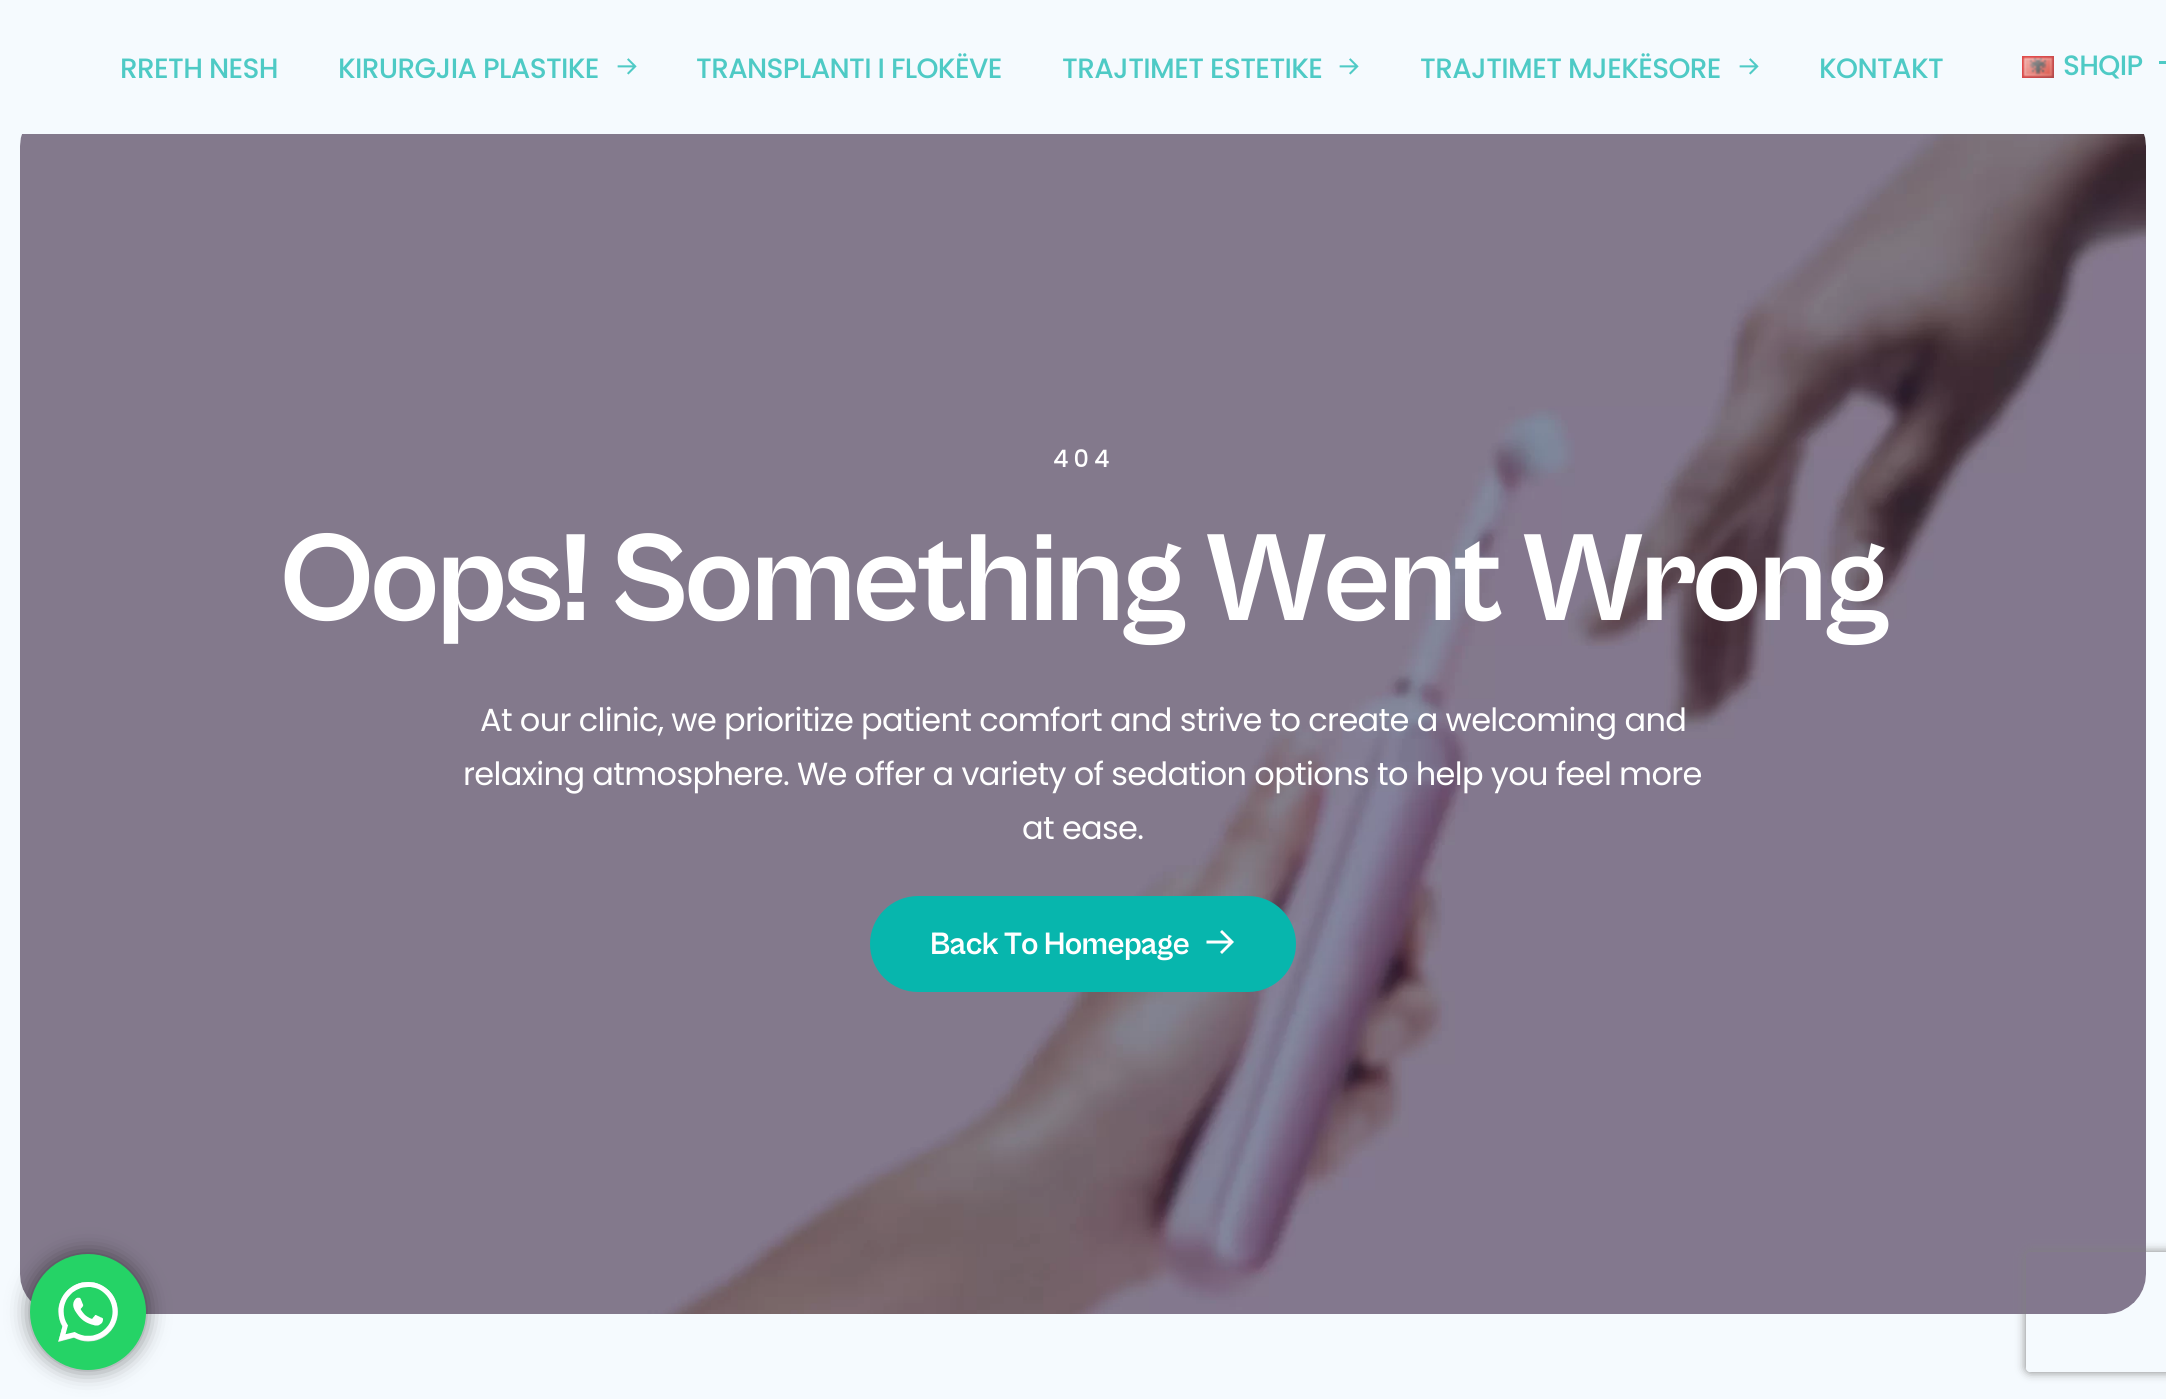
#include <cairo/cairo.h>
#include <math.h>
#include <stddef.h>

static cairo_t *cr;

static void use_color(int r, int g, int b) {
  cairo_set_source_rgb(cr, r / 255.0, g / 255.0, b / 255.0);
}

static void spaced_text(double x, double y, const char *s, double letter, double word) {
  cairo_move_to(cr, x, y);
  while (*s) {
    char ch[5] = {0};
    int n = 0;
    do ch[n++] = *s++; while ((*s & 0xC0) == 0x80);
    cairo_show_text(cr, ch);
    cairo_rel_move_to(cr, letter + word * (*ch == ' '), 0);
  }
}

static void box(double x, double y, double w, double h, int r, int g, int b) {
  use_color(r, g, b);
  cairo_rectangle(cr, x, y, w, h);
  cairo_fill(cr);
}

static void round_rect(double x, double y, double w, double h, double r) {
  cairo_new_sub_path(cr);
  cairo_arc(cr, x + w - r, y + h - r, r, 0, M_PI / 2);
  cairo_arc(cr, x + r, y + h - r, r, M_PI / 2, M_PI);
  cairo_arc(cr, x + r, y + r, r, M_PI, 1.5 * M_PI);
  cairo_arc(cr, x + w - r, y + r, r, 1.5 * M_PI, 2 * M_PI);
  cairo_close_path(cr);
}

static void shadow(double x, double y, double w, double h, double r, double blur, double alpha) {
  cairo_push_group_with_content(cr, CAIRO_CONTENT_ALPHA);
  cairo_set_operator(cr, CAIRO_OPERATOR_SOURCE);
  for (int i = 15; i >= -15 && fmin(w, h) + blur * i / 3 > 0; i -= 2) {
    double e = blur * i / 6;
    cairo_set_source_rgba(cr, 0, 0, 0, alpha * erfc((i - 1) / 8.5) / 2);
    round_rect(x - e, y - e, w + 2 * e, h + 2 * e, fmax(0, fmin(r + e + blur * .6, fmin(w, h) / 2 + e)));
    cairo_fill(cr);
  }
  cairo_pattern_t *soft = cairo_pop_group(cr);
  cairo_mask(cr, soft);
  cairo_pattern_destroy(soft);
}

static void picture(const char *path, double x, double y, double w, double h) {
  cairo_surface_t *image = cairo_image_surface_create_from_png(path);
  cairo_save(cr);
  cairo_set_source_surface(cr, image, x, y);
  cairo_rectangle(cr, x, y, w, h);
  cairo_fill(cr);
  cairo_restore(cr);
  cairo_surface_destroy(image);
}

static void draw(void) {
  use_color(245, 250, 254);
  cairo_paint(cr);
  picture("img_01.png", 617, 58, 20, 17);
  picture("img_01.png", 1339, 58, 20, 17);
  picture("img_01.png", 1739, 58, 20, 17);
  picture("img_02.png", 2022, 56, 32, 22);
  box(2159, 61, 7, 3, 78, 202, 197);
  picture("img_03.png", 20, 134, 2126, 1180);
  use_color(7, 182, 173);
  round_rect(870, 896, 426, 96, 48);
  cairo_fill(cr);
  use_color(255, 255, 255);
  cairo_new_path(cr);
  cairo_move_to(cr, 1220, 952);
  cairo_line_to(cr, 1228.5, 943.5);
  cairo_line_to(cr, 1206.5, 943.5);
  cairo_line_to(cr, 1206.5, 940.5);
  cairo_line_to(cr, 1228.5, 940.5);
  cairo_line_to(cr, 1220, 932);
  cairo_line_to(cr, 1222, 930);
  cairo_line_to(cr, 1234, 942);
  cairo_line_to(cr, 1222, 954);
  cairo_close_path(cr);
  cairo_fill(cr);
  use_color(0, 0, 0);
  shadow(30, 1254, 116, 116, 58, 11, 0.5);
  use_color(37, 211, 102);
  cairo_arc(cr, 88, 1312, 58, 0, 2 * M_PI);
  cairo_fill(cr);
  picture("img_04.png", 58, 1282, 60, 60);
  cairo_save(cr);
  cairo_set_fill_rule(cr, CAIRO_FILL_RULE_EVEN_ODD);
  cairo_new_path(cr);
  cairo_move_to(cr, 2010, 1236);
  cairo_line_to(cr, 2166, 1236);
  cairo_line_to(cr, 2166, 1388);
  cairo_line_to(cr, 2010, 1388);
  cairo_close_path(cr);
  cairo_move_to(cr, 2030, 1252);
  cairo_line_to(cr, 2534, 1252);
  cairo_curve_to(cr, 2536, 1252, 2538, 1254, 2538, 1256);
  cairo_line_to(cr, 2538, 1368);
  cairo_curve_to(cr, 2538, 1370, 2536, 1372, 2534, 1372);
  cairo_line_to(cr, 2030, 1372);
  cairo_curve_to(cr, 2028, 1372, 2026, 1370, 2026, 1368);
  cairo_line_to(cr, 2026, 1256);
  cairo_curve_to(cr, 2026, 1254, 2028, 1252, 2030, 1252);
  cairo_close_path(cr);
  cairo_clip(cr);
  use_color(128, 128, 128);
  shadow(2026, 1252, 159, 120, 4, 5, 1);
  cairo_restore(cr);
  cairo_select_font_face(cr, "Poppins Medium", CAIRO_FONT_SLANT_NORMAL, CAIRO_FONT_WEIGHT_NORMAL);
  cairo_set_font_size(cr, 28);
  use_color(78, 202, 197);
  spaced_text(120, 78, "RRETH NESH", -0.65, 0);
  spaced_text(338, 78, "KIRURGJIA PLASTIKE", -0.65, 0);
  spaced_text(696, 78, "TRANSPLANTI I FLOKËVE", -0.65, 0);
  spaced_text(1062, 78, "TRAJTIMET ESTETIKE", -0.65, 0);
  spaced_text(1420, 78, "TRAJTIMET MJEKËSORE", -0.65, 0);
  spaced_text(1819, 78, "KONTAKT", -0.65, 0);
  spaced_text(2063, 75, "SHQIP", -0.65, 0);
  cairo_set_font_size(cr, 24);
  use_color(255, 255, 255);
  spaced_text(1053, 467, "404", 5, 0);
  cairo_select_font_face(cr, "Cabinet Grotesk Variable", CAIRO_FONT_SLANT_NORMAL, CAIRO_FONT_WEIGHT_BOLD);
  cairo_set_font_size(cr, 128);
  spaced_text(279, 620, "Oops! Something Went Wrong", -3.85, 0);
  cairo_select_font_face(cr, "Poppins", CAIRO_FONT_SLANT_NORMAL, CAIRO_FONT_WEIGHT_NORMAL);
  cairo_set_font_size(cr, 32);
  spaced_text(480, 731, "At our clinic, we prioritize patient comfort and strive to create a welcoming and", -0.65, 0);
  spaced_text(463, 785, "relaxing atmosphere. We offer a variety of sedation options to help you feel more", -0.65, 0);
  spaced_text(1022, 839, "at ease.", -0.65, 0);
  cairo_select_font_face(cr, "Cabinet Grotesk Variable", CAIRO_FONT_SLANT_NORMAL, CAIRO_FONT_WEIGHT_BOLD);
  spaced_text(930, 954, "Back To Homepage", -0.65, 0);
}

int main(void) {
  cairo_surface_t *surface = cairo_image_surface_create(CAIRO_FORMAT_RGB24, 2166, 1399);
  cr = cairo_create(surface);
  cairo_font_options_t *options = cairo_font_options_create();
  cairo_font_options_set_hint_metrics(options, CAIRO_HINT_METRICS_OFF);
  cairo_font_options_set_hint_style(options, CAIRO_HINT_STYLE_NONE);
  cairo_set_font_options(cr, options);
  cairo_set_miter_limit(cr, 4);
  draw();
  cairo_surface_write_to_png(surface, "out.png");
  cairo_font_options_destroy(options);
  cairo_destroy(cr);
  cairo_surface_destroy(surface);
  return 0;
}
